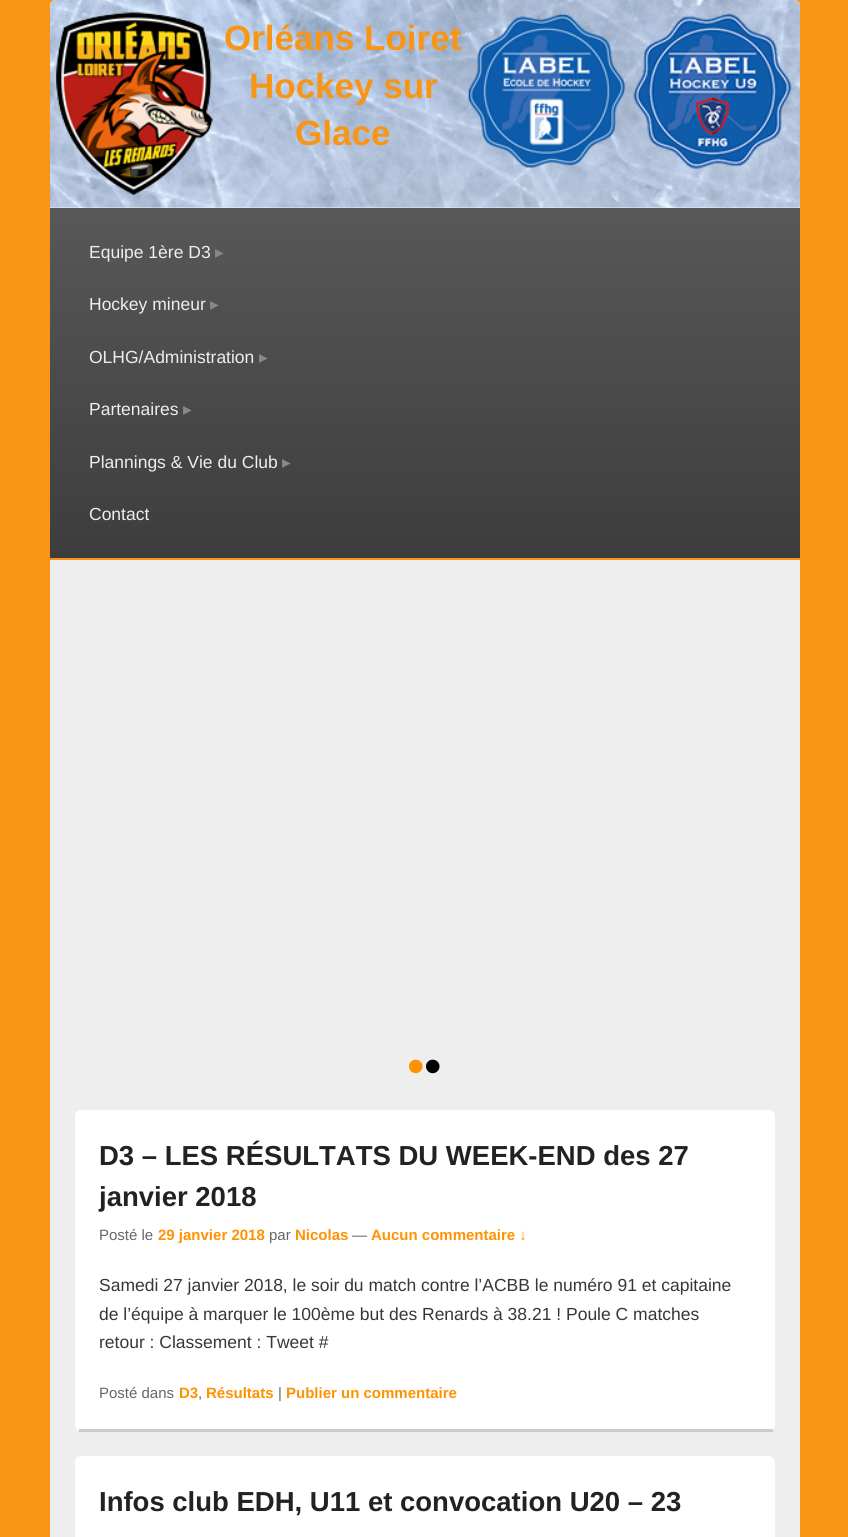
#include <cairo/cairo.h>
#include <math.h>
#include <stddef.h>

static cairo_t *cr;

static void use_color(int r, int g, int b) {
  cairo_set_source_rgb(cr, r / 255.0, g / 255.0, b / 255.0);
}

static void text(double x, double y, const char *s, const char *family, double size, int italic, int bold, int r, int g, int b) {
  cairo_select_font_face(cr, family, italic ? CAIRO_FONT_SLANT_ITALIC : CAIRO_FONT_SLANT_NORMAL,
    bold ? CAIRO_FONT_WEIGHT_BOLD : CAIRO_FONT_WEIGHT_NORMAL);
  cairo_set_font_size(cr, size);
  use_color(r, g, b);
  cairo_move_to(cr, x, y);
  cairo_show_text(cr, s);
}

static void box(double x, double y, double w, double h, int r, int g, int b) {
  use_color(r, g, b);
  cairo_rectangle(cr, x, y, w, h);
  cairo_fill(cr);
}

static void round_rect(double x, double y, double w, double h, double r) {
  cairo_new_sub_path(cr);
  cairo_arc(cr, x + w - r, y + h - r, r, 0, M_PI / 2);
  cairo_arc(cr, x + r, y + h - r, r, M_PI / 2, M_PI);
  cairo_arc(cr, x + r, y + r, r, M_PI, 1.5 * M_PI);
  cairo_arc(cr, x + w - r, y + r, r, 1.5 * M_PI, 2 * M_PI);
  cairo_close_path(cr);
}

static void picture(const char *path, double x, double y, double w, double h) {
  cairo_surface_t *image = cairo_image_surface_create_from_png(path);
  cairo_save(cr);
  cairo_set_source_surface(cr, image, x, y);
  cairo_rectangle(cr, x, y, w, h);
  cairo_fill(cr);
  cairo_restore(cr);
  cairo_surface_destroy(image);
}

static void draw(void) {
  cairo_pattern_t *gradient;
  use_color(249, 149, 21);
  cairo_paint(cr);
  use_color(238, 238, 238);
  cairo_new_path(cr);
  cairo_move_to(cr, 56, 0);
  cairo_line_to(cr, 794, 0);
  cairo_curve_to(cr, 797.5, 0, 800, 2.5, 800, 6);
  cairo_line_to(cr, 800, 208);
  cairo_line_to(cr, 50, 208);
  cairo_line_to(cr, 50, 6);
  cairo_curve_to(cr, 50, 2.5, 52.5, 0, 56, 0);
  cairo_close_path(cr);
  cairo_fill(cr);
  picture("img_01.png", 49, 0, 751, 208);
  picture("img_02.png", 56, 12, 157, 183);
  picture("img_03.png", 467, 13, 159, 155);
  picture("img_04.png", 633, 13, 159, 156);
  gradient = cairo_pattern_create_linear(425, 207, 425, 558);
  cairo_pattern_add_color_stop_rgba(gradient, 0, 0.345, 0.345, 0.345, 1);
  cairo_pattern_add_color_stop_rgba(gradient, 1, 0.239, 0.239, 0.239, 1);
  cairo_set_source(cr, gradient);
  cairo_pattern_destroy(gradient);
  cairo_rectangle(cr, 50, 208, 750, 350);
  cairo_fill(cr);
  box(50, 560, 750, 977, 238, 238, 238);
  use_color(255, 255, 255);
  round_rect(75, 1110, 700, 321, 6);
  cairo_fill(cr);
  box(79, 1429, 694, 3, 204, 204, 204);
  use_color(255, 255, 255);
  round_rect(75, 1456, 700, 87, 6);
  cairo_fill(cr);
  text(224, 50, "Orléans Loiret", "Liberation Sans", 35, 0, 1, 249, 149, 21);
  text(249, 98, "Hockey sur", "Liberation Sans", 35, 0, 1, 249, 149, 21);
  text(295, 145, "Glace", "Liberation Sans", 35, 0, 1, 249, 149, 21);
  text(89, 258, "Equipe 1ère D3", "Liberation Sans", 17.5, 0, 0, 238, 238, 238);
  text(215, 258, "▸", "DejaVu Sans", 17.5, 0, 0, 136, 136, 136);
  text(89, 310, "Hockey mineur", "Liberation Sans", 17.5, 0, 0, 238, 238, 238);
  text(210, 310, "▸", "DejaVu Sans", 17.5, 0, 0, 136, 136, 136);
  text(89, 363, "OLHG/Administration", "Liberation Sans", 17.5, 0, 0, 238, 238, 238);
  text(259, 363, "▸", "DejaVu Sans", 17.5, 0, 0, 136, 136, 136);
  text(89, 415, "Partenaires", "Liberation Sans", 17.5, 0, 0, 238, 238, 238);
  text(183, 415, "▸", "DejaVu Sans", 17.5, 0, 0, 136, 136, 136);
  text(89, 468, "Plannings & Vie du Club", "Liberation Sans", 17.5, 0, 0, 238, 238, 238);
  text(282, 468, "▸", "DejaVu Sans", 17.5, 0, 0, 136, 136, 136);
  text(89, 520, "Contact", "Liberation Sans", 17.5, 0, 0, 238, 238, 238);
  text(407, 1083, "•", "Liberation Sans", 50, 0, 0, 255, 146, 0);
  text(424, 1083, "•", "Liberation Sans", 50, 0, 0, 0, 0, 0);
  text(99, 1165, "D3 – LES RÉSULTATS DU WEEK-END des 27", "Liberation Sans", 27.5, 0, 1, 34, 34, 34);
  text(99, 1206, "janvier 2018", "Liberation Sans", 27.5, 0, 1, 34, 34, 34);
  text(99, 1240, "Posté le", "Liberation Sans", 15, 0, 0, 102, 102, 102);
  text(158, 1240, "29 janvier 2018", "Liberation Sans", 15, 0, 1, 255, 146, 0);
  text(269, 1240, "par", "Liberation Sans", 15, 0, 0, 102, 102, 102);
  text(295, 1240, "Nicolas", "Liberation Sans", 15, 0, 1, 255, 146, 0);
  text(352, 1240, "—", "Liberation Sans", 15, 0, 0, 102, 102, 102);
  text(371, 1240, "Aucun commentaire ↓", "Liberation Sans", 15, 0, 1, 255, 146, 0);
  text(99, 1291, "Samedi 27 janvier 2018, le soir du match contre l’ACBB le numéro 91 et capitaine", "Liberation Sans", 17.5, 0, 0, 55, 55, 55);
  text(99, 1320, "de l’équipe à marquer le 100ème but des Renards à 38.21 ! Poule C matches", "Liberation Sans", 17.5, 0, 0, 55, 55, 55);
  text(99, 1348, "retour : Classement : Tweet #", "Liberation Sans", 17.5, 0, 0, 55, 55, 55);
  text(99, 1398, "Posté dans", "Liberation Sans", 15, 0, 0, 102, 102, 102);
  text(179, 1398, "D3", "Liberation Sans", 15, 0, 1, 255, 146, 0);
  text(198, 1398, ",", "Liberation Sans", 15, 0, 0, 102, 102, 102);
  text(206, 1398, "Résultats", "Liberation Sans", 15, 0, 1, 255, 146, 0);
  text(278, 1398, "|", "Liberation Sans", 15, 0, 0, 102, 102, 102);
  text(286, 1398, "Publier un commentaire", "Liberation Sans", 15, 0, 1, 255, 146, 0);
  text(99, 1511, "Infos club EDH, U11 et convocation U20 – 23", "Liberation Sans", 27.5, 0, 1, 34, 34, 34);
}

int main(void) {
  cairo_surface_t *surface = cairo_image_surface_create(CAIRO_FORMAT_RGB24, 848, 1537);
  cr = cairo_create(surface);
  cairo_font_options_t *options = cairo_font_options_create();
  cairo_font_options_set_hint_metrics(options, CAIRO_HINT_METRICS_OFF);
  cairo_font_options_set_hint_style(options, CAIRO_HINT_STYLE_NONE);
  cairo_set_font_options(cr, options);
  cairo_set_miter_limit(cr, 4);
  draw();
  cairo_surface_write_to_png(surface, "out.png");
  cairo_font_options_destroy(options);
  cairo_destroy(cr);
  cairo_surface_destroy(surface);
  return 0;
}
